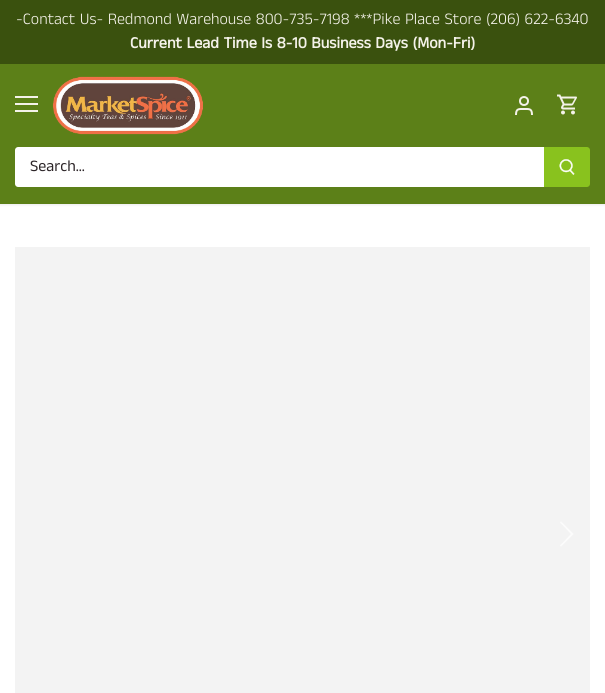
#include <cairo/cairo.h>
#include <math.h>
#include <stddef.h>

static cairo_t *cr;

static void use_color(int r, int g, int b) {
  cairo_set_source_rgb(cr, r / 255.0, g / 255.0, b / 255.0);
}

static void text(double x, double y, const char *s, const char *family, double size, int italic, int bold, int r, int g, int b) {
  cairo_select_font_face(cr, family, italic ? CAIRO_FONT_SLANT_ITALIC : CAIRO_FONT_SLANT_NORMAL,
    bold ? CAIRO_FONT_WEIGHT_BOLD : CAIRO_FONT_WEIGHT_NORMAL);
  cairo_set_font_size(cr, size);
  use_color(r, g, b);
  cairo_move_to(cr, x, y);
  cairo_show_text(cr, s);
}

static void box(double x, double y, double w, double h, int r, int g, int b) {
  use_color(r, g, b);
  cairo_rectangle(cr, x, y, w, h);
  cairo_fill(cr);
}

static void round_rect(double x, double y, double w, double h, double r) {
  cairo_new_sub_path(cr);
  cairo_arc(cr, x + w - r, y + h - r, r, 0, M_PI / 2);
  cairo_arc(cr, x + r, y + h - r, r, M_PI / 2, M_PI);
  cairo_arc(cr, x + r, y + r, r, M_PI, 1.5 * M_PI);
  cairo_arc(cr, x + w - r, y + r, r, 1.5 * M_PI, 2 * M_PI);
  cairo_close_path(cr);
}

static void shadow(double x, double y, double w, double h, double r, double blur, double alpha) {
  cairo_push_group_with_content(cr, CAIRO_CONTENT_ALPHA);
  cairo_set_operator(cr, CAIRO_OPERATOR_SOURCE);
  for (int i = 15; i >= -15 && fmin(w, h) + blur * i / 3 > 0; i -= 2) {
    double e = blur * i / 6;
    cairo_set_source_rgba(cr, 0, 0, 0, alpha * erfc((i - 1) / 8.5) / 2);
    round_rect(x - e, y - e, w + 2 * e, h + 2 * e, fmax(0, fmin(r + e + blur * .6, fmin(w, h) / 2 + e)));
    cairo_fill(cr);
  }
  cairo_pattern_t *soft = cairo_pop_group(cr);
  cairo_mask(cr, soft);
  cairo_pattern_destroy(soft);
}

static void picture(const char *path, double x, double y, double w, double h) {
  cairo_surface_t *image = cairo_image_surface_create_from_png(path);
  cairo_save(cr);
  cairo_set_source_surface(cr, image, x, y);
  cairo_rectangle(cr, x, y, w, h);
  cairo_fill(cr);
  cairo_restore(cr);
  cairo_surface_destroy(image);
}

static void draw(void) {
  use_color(255, 255, 255);
  cairo_paint(cr);
  use_color(0, 0, 0);
  shadow(-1, 63, 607, 142, 0, 1.5, 0.08);
  box(0, 0, 605, 64, 58, 81, 14);
  box(0, 64, 605, 140, 92, 128, 24);
  box(15, 96, 23, 2, 244, 242, 233);
  box(15, 103, 23, 2, 244, 242, 233);
  box(15, 110, 23, 2, 244, 242, 233);
  picture("img_01.png", 53, 76, 150, 59);
  cairo_arc(cr, 524, 101, 4, 0, 2 * M_PI);
  cairo_stroke(cr);
  cairo_new_path(cr);
  cairo_move_to(cr, 532, 115);
  cairo_curve_to(cr, 532, 108.5, 529.5, 109, 524, 109);
  cairo_curve_to(cr, 518.5, 109, 516, 108.5, 516, 115);
  cairo_stroke(cr);
  picture("img_02.png", 557, 94, 20, 21);
  use_color(255, 255, 255);
  cairo_new_path(cr);
  cairo_move_to(cr, 18, 147);
  cairo_line_to(cr, 545, 147);
  cairo_line_to(cr, 545, 187);
  cairo_line_to(cr, 18, 187);
  cairo_curve_to(cr, 16.5, 187, 15, 185.5, 15, 184);
  cairo_line_to(cr, 15, 150);
  cairo_curve_to(cr, 15, 148.5, 16.5, 147, 18, 147);
  cairo_close_path(cr);
  cairo_fill(cr);
  use_color(137, 194, 30);
  cairo_new_path(cr);
  cairo_move_to(cr, 544, 147);
  cairo_line_to(cr, 587, 147);
  cairo_curve_to(cr, 588.5, 147, 590, 148.5, 590, 150);
  cairo_line_to(cr, 590, 184);
  cairo_curve_to(cr, 590, 185.5, 588.5, 187, 587, 187);
  cairo_line_to(cr, 544, 187);
  cairo_close_path(cr);
  cairo_fill(cr);
  picture("img_03.png", 559, 159, 16, 16);
  box(15, 247, 575, 446, 243, 243, 243);
  use_color(252, 252, 252);
  cairo_new_path(cr);
  cairo_move_to(cr, 561, 521.5);
  cairo_line_to(cr, 560, 522.5);
  cairo_line_to(cr, 571, 534);
  cairo_line_to(cr, 560, 545.5);
  cairo_line_to(cr, 561, 546.5);
  cairo_line_to(cr, 573.5, 534);
  cairo_close_path(cr);
  cairo_fill(cr);
  text(16, 24, "-Contact Us- Redmond Warehouse 800-735-7198 ***Pike Place Store (206) 622-6340", "Anek Tamil Light", 16.15, 0, 0, 244, 242, 233);
  text(130, 48, "Current Lead Time Is 8-10 Business Days (Mon-Fri)", "Anek Tamil", 16.15, 0, 1, 244, 242, 233);
  text(30, 171, "Search...", "Anek Tamil", 16, 0, 0, 44, 37, 40);
}

int main(void) {
  cairo_surface_t *surface = cairo_image_surface_create(CAIRO_FORMAT_RGB24, 605, 693);
  cr = cairo_create(surface);
  cairo_font_options_t *options = cairo_font_options_create();
  cairo_font_options_set_hint_metrics(options, CAIRO_HINT_METRICS_OFF);
  cairo_font_options_set_hint_style(options, CAIRO_HINT_STYLE_NONE);
  cairo_set_font_options(cr, options);
  cairo_set_miter_limit(cr, 4);
  draw();
  cairo_surface_write_to_png(surface, "out.png");
  cairo_font_options_destroy(options);
  cairo_destroy(cr);
  cairo_surface_destroy(surface);
  return 0;
}
